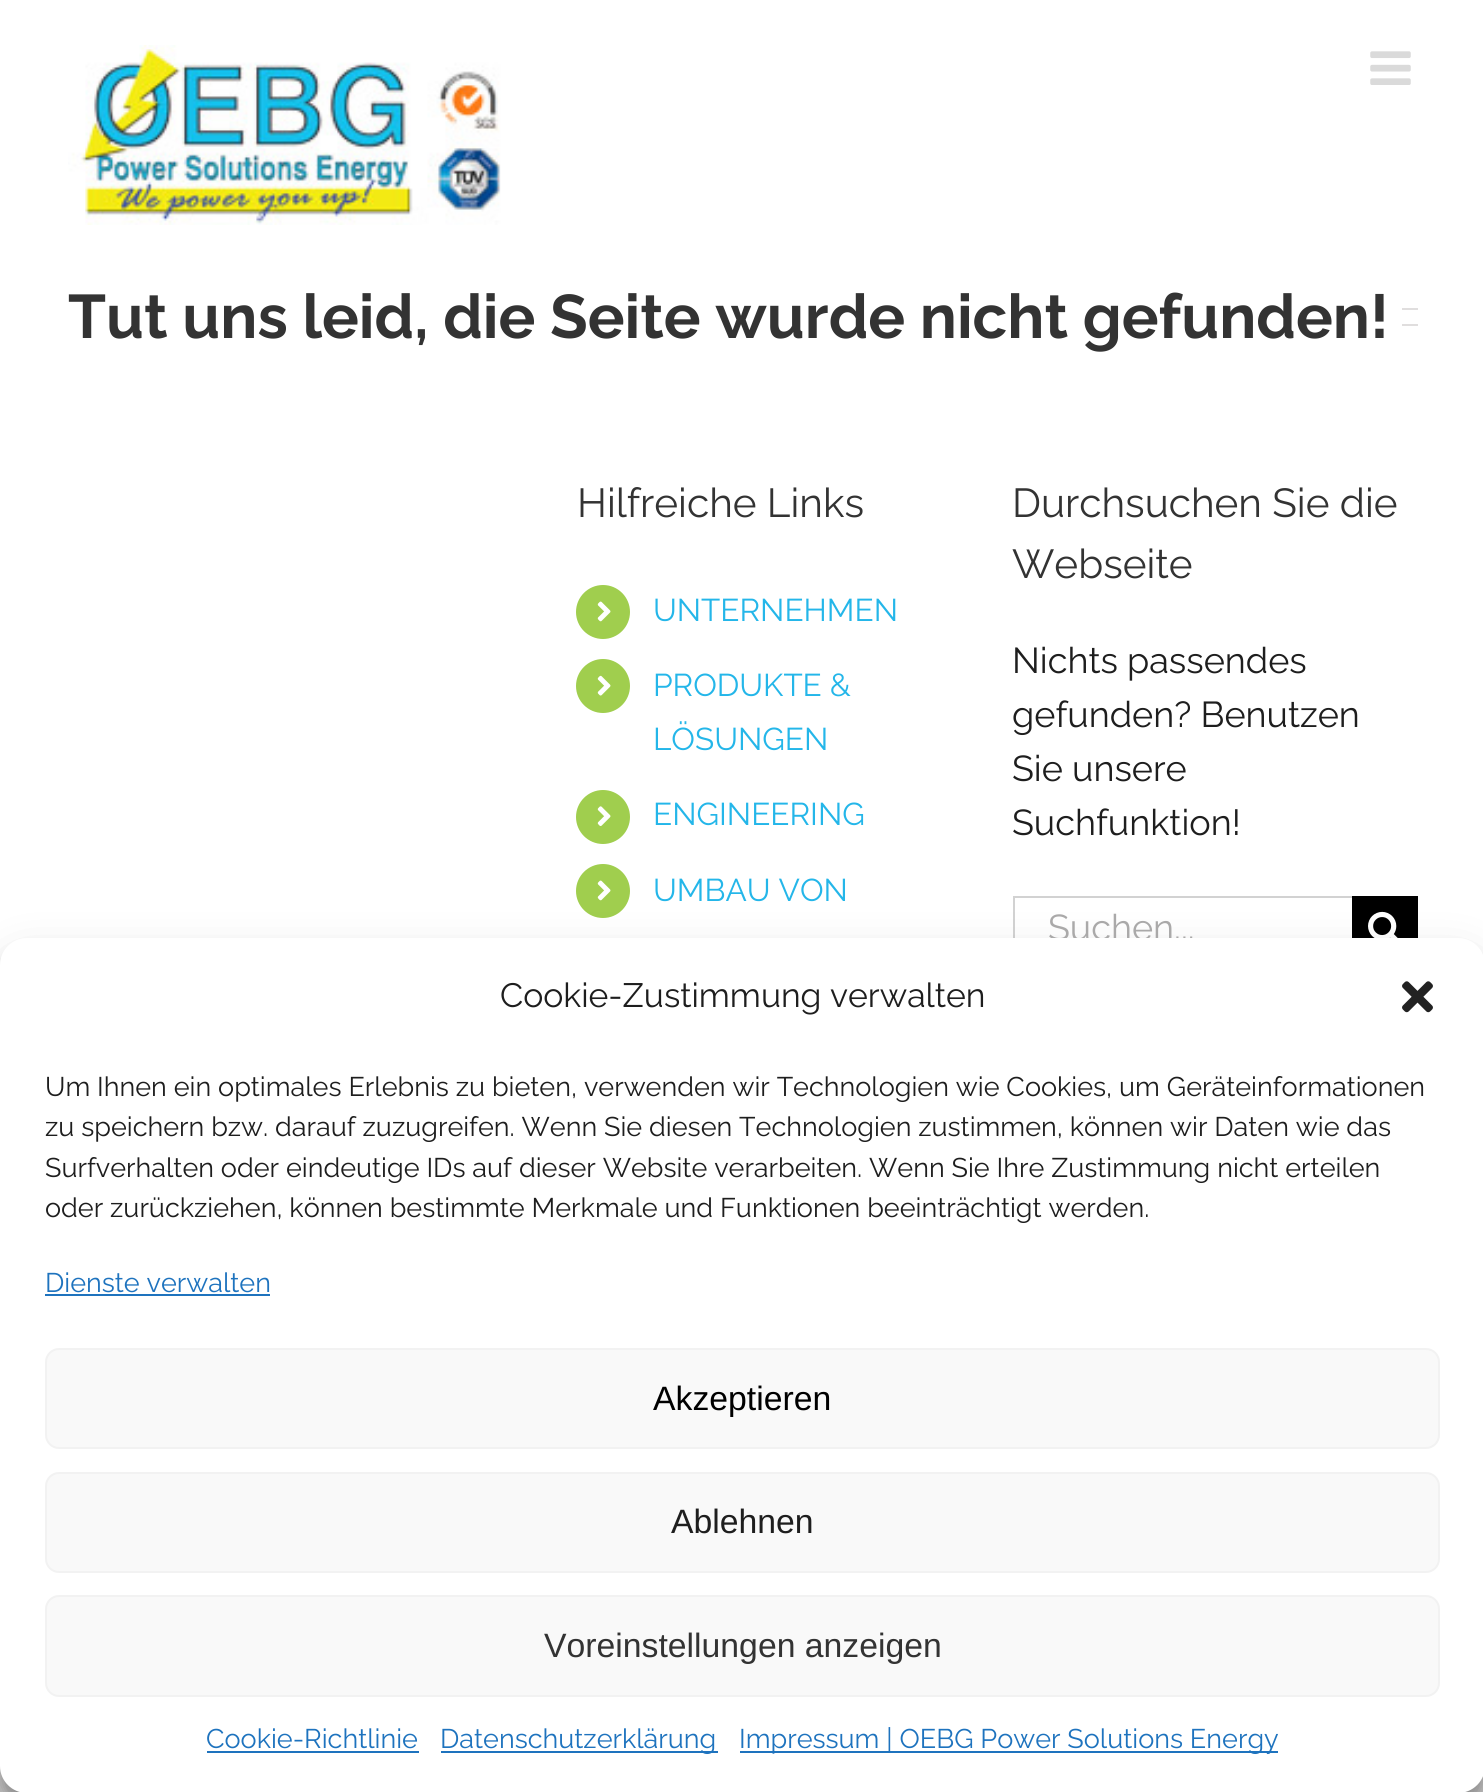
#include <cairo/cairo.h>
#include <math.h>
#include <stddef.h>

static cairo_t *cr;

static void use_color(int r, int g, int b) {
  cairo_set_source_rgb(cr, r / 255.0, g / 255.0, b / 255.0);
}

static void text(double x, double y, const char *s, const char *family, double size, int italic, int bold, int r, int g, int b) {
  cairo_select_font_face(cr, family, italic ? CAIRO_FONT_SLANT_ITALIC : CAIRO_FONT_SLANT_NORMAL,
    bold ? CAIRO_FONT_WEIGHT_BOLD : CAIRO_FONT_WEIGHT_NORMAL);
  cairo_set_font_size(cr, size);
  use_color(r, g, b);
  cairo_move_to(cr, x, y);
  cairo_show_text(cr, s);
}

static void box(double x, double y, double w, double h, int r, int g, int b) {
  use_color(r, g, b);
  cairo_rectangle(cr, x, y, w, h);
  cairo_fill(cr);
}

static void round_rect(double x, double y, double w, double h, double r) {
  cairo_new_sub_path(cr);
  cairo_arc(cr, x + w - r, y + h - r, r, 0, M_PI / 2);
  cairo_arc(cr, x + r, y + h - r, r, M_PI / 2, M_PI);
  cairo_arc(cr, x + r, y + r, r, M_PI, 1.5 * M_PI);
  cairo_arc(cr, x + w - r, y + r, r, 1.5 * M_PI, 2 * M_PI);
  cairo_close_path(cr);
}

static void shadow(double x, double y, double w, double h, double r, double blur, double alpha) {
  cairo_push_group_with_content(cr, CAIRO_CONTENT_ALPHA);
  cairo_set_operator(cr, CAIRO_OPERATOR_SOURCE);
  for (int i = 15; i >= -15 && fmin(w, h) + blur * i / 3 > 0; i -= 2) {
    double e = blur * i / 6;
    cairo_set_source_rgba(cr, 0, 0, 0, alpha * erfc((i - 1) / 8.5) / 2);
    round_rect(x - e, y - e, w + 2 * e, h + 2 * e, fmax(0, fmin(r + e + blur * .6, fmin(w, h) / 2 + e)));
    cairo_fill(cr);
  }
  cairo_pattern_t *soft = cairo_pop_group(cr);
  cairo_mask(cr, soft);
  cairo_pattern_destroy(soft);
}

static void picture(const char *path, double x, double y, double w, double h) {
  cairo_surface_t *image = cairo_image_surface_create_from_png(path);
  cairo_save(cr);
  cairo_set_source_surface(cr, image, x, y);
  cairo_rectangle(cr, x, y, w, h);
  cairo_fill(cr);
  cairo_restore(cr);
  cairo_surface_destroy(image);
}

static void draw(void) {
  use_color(215, 214, 214);
  cairo_paint(cr);
  box(0, 0, 1483, 965, 255, 255, 255);
  picture("img_01.png", 68, 45, 433, 180);
  picture("img_02.png", 1370, 51, 41, 34);
  box(1402, 308, 16, 2, 224, 222, 222);
  box(1402, 324, 16, 2, 224, 222, 222);
  use_color(160, 206, 78);
  cairo_arc(cr, 603, 612, 27, 0, 2 * M_PI);
  cairo_fill(cr);
  picture("img_03.png", 597, 601, 14, 21);
  cairo_arc(cr, 603, 686, 27, 0, 2 * M_PI);
  cairo_fill(cr);
  picture("img_04.png", 597, 675, 14, 21);
  cairo_arc(cr, 603, 817, 27, 0, 2 * M_PI);
  cairo_fill(cr);
  picture("img_05.png", 597, 806, 14, 20);
  cairo_arc(cr, 603, 891, 27, 0, 2 * M_PI);
  cairo_fill(cr);
  picture("img_03.png", 597, 880, 14, 21);
  box(1013, 896, 339, 2, 210, 210, 210);
  box(1013, 896, 2, 42, 210, 210, 210);
  box(1352, 896, 66, 42, 0, 0, 0);
  picture("img_06.png", 1368, 911, 30, 27);
  use_color(0, 0, 0);
  shadow(0, 952, 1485, 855, 27, 7, 0.23);
  shadow(0, 961, 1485, 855, 27, 22.5, 0.19);
  text(68, 338, "Tut uns leid, die Seite wurde nicht gefunden!", "Raleway", 61.45, 0, 1, 51, 51, 51);
  text(577, 517, "Hilfreiche Links", "Raleway", 40.5, 0, 0, 51, 51, 51);
  text(653, 621, "UNTERNEHMEN", "Raleway", 31.5, 0, 0, 36, 182, 233);
  text(653, 696, "PRODUKTE &", "Raleway", 31.5, 0, 0, 36, 182, 233);
  text(653, 750, "LÖSUNGEN", "Raleway", 31.5, 0, 0, 36, 182, 233);
  text(653, 825, "ENGINEERING", "Raleway", 31.5, 0, 0, 36, 182, 233);
  text(653, 901, "UMBAU VON", "Raleway", 31.5, 0, 0, 36, 182, 233);
  text(1012, 517, "Durchsuchen Sie die", "Raleway", 40.5, 0, 0, 51, 51, 51);
  text(1012, 578, "Webseite", "Raleway", 40.5, 0, 0, 51, 51, 51);
  text(1012, 673, "Nichts passendes", "Raleway", 36, 0, 0, 30, 30, 30);
  text(1012, 727, "gefunden? Benutzen", "Raleway", 36, 0, 0, 30, 30, 30);
  text(1012, 781, "Sie unsere", "Raleway", 36, 0, 0, 30, 30, 30);
  text(1012, 835, "Suchfunktion!", "Raleway", 36, 0, 0, 30, 30, 30);
  text(1048, 940, "Suchen...", "Raleway", 36, 0, 0, 170, 169, 169);
  use_color(255, 255, 255);
  round_rect(0, 938, 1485, 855, 27);
  cairo_fill(cr);
  text(500, 1007, "Cookie-Zustimmung verwalten", "Raleway", 33.75, 0, 0, 30, 30, 30);
  picture("img_07.png", 1402, 981, 31, 32);
  text(45, 1096, "Um Ihnen ein optimales Erlebnis zu bieten, verwenden wir Technologien wie Cookies, um Geräteinformationen", "Raleway", 27, 0, 0, 30, 30, 30);
  text(45, 1136, "zu speichern bzw. darauf zuzugreifen. Wenn Sie diesen Technologien zustimmen, können wir Daten wie das", "Raleway", 27, 0, 0, 30, 30, 30);
  text(45, 1177, "Surfverhalten oder eindeutige IDs auf dieser Website verarbeiten. Wenn Sie Ihre Zustimmung nicht erteilen", "Raleway", 27, 0, 0, 30, 30, 30);
  text(45, 1217, "oder zurückziehen, können bestimmte Merkmale und Funktionen beeinträchtigt werden.", "Raleway", 27, 0, 0, 30, 30, 30);
  text(45, 1292, "Dienste verwalten", "Raleway", 27, 0, 0, 30, 115, 190);
  box(45, 1294, 225, 2, 30, 115, 190);
  use_color(249, 249, 249);
  round_rect(46, 1349, 1393, 99, 13);
  cairo_fill_preserve(cr);
  use_color(242, 242, 242);
  cairo_stroke(cr);
  text(653, 1410, "Akzeptieren", "Liberation Sans", 33.75, 0, 0, 0, 0, 0);
  use_color(249, 249, 249);
  round_rect(46, 1473, 1393, 99, 13);
  cairo_fill_preserve(cr);
  use_color(242, 242, 242);
  cairo_stroke(cr);
  text(671, 1533, "Ablehnen", "Liberation Sans", 33.75, 0, 0, 30, 30, 30);
  use_color(249, 249, 249);
  round_rect(46, 1596, 1393, 100, 13);
  cairo_fill_preserve(cr);
  use_color(242, 242, 242);
  cairo_stroke(cr);
  text(544, 1657, "Voreinstellungen anzeigen", "Liberation Sans", 33.75, 0, 0, 51, 51, 51);
  text(206, 1748, "Cookie-Richtlinie", "Raleway", 27, 0, 0, 30, 115, 190);
  box(207, 1751, 212, 2, 30, 115, 190);
  box(441, 1751, 277, 2, 30, 115, 190);
  text(440, 1748, "Datenschutzerklärung", "Raleway", 27, 0, 0, 30, 115, 190);
  box(740, 1751, 538, 2, 30, 115, 190);
  text(739, 1748, "Impressum | OEBG Power Solutions Energy", "Raleway", 27, 0, 0, 30, 115, 190);
}

int main(void) {
  cairo_surface_t *surface = cairo_image_surface_create(CAIRO_FORMAT_RGB24, 1483, 1792);
  cr = cairo_create(surface);
  cairo_font_options_t *options = cairo_font_options_create();
  cairo_font_options_set_hint_metrics(options, CAIRO_HINT_METRICS_OFF);
  cairo_font_options_set_hint_style(options, CAIRO_HINT_STYLE_NONE);
  cairo_set_font_options(cr, options);
  cairo_set_miter_limit(cr, 4);
  draw();
  cairo_surface_write_to_png(surface, "out.png");
  cairo_font_options_destroy(options);
  cairo_destroy(cr);
  cairo_surface_destroy(surface);
  return 0;
}
